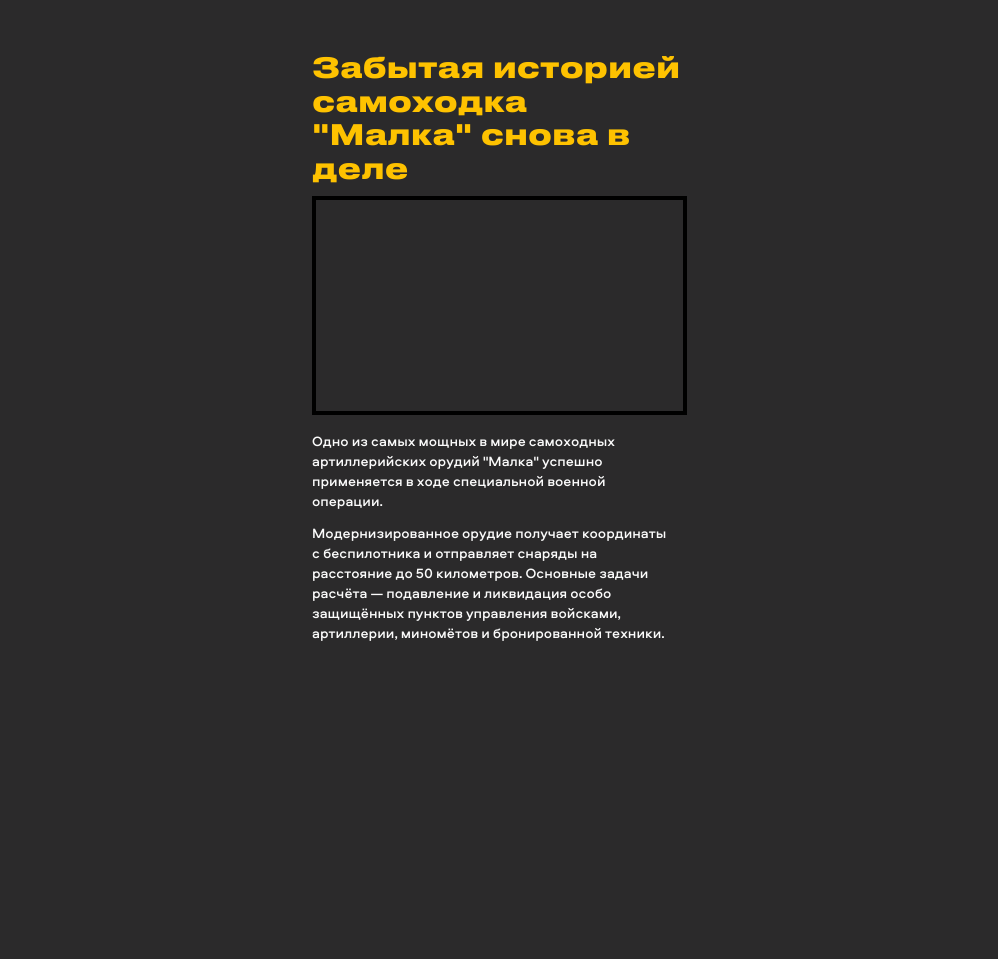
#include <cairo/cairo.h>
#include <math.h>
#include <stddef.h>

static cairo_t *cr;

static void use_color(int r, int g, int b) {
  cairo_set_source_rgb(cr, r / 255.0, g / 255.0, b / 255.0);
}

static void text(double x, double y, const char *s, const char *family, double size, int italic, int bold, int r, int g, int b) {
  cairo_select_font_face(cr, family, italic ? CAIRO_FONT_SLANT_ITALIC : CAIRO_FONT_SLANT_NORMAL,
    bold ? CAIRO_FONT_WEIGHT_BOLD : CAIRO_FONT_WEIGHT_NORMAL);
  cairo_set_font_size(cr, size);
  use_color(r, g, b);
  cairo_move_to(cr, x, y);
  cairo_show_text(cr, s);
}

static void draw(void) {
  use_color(43, 42, 43);
  cairo_paint(cr);
  cairo_rectangle(cr, 314, 198, 371, 215);
  use_color(0, 0, 0);
  cairo_set_line_width(cr, 4);
  cairo_stroke(cr);
  text(312, 78, "Забытая историей", "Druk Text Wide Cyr", 28, 0, 1, 254, 194, 0);
  text(312, 112, "самоходка", "Druk Text Wide Cyr", 28, 0, 1, 254, 194, 0);
  text(312, 145, "\"Малка\" снова в", "Druk Text Wide Cyr", 28, 0, 1, 254, 194, 0);
  text(312, 179, "деле", "Druk Text Wide Cyr", 28, 0, 1, 254, 194, 0);
  text(312, 446, "Одно из самых мощных в мире самоходных", "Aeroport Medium", 14, 0, 0, 251, 251, 251);
  text(312, 466, "артиллерийских орудий \"Малка\" успешно", "Aeroport Medium", 14, 0, 0, 251, 251, 251);
  text(312, 486, "применяется в ходе специальной военной", "Aeroport Medium", 14, 0, 0, 251, 251, 251);
  text(312, 506, "операции.", "Aeroport Medium", 14, 0, 0, 251, 251, 251);
  text(312, 538, "Модернизированное орудие получает координаты", "Aeroport Medium", 14, 0, 0, 251, 251, 251);
  text(312, 558, "с беспилотника и отправляет снаряды на", "Aeroport Medium", 14, 0, 0, 251, 251, 251);
  text(312, 578, "расстояние до 50 километров. Основные задачи", "Aeroport Medium", 14, 0, 0, 251, 251, 251);
  text(312, 598, "расчёта — подавление и ликвидация особо", "Aeroport Medium", 14, 0, 0, 251, 251, 251);
  text(312, 618, "защищённых пунктов управления войсками,", "Aeroport Medium", 14, 0, 0, 251, 251, 251);
  text(312, 638, "артиллерии, миномётов и бронированной техники.", "Aeroport Medium", 14, 0, 0, 251, 251, 251);
}

int main(void) {
  cairo_surface_t *surface = cairo_image_surface_create(CAIRO_FORMAT_RGB24, 998, 959);
  cr = cairo_create(surface);
  cairo_font_options_t *options = cairo_font_options_create();
  cairo_font_options_set_hint_metrics(options, CAIRO_HINT_METRICS_OFF);
  cairo_font_options_set_hint_style(options, CAIRO_HINT_STYLE_NONE);
  cairo_set_font_options(cr, options);
  cairo_set_miter_limit(cr, 4);
  draw();
  cairo_surface_write_to_png(surface, "out.png");
  cairo_font_options_destroy(options);
  cairo_destroy(cr);
  cairo_surface_destroy(surface);
  return 0;
}
